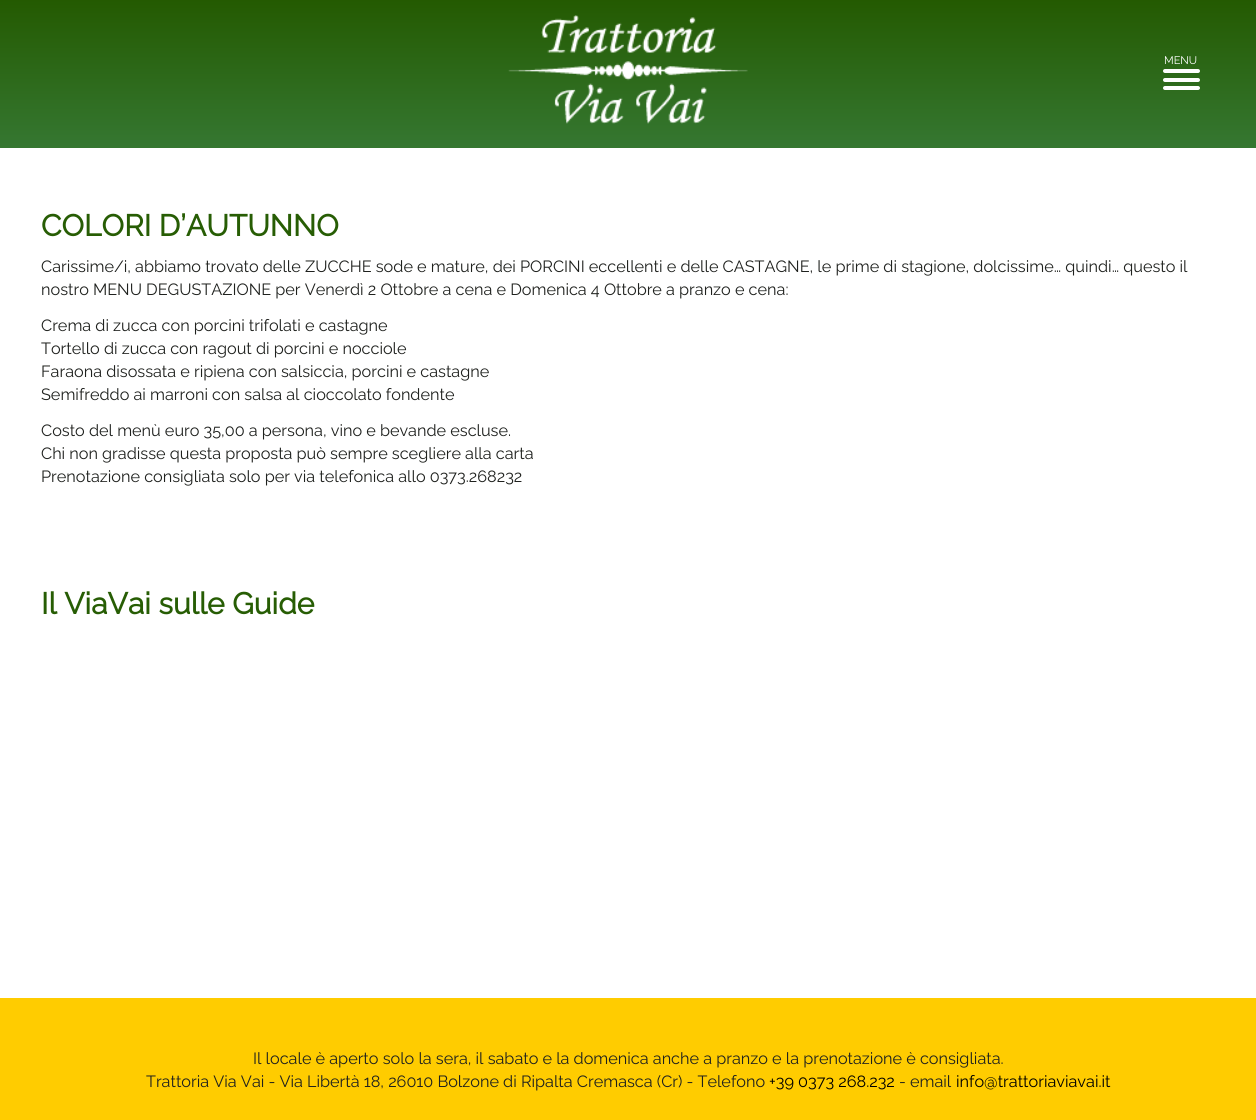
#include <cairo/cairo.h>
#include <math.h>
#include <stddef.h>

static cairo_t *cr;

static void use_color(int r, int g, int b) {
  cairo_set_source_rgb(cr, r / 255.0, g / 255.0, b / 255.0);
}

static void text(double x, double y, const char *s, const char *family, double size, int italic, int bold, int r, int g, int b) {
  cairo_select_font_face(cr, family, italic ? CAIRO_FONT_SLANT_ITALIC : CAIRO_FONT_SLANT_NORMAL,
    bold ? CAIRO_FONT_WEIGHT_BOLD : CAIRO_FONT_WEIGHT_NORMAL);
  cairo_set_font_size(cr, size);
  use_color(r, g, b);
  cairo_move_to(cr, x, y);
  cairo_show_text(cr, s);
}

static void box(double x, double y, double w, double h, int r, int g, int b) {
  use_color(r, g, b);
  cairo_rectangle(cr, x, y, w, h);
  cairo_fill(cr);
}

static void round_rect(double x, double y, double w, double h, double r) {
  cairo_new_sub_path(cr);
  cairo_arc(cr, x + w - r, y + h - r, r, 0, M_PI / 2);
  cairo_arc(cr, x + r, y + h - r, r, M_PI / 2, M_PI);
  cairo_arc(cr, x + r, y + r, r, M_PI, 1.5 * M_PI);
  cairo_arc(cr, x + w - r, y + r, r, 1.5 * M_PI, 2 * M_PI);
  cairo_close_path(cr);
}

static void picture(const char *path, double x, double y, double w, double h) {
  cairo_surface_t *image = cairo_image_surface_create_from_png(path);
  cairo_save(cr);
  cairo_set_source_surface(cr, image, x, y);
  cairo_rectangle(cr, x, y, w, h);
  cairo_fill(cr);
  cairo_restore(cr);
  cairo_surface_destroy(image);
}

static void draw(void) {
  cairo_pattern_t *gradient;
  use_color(255, 255, 255);
  cairo_paint(cr);
  gradient = cairo_pattern_create_linear(628, 0, 628, 148);
  cairo_pattern_add_color_stop_rgba(gradient, 0, 0.141, 0.353, 0.004, 1);
  cairo_pattern_add_color_stop_rgba(gradient, 1, 0.208, 0.467, 0.192, 1);
  cairo_set_source(cr, gradient);
  cairo_pattern_destroy(gradient);
  cairo_rectangle(cr, 0, 0, 1256, 148);
  cairo_fill(cr);
  picture("img_01.png", 508, 15, 240, 109);
  use_color(255, 255, 255);
  round_rect(1163, 69, 37, 4, 2);
  cairo_fill(cr);
  round_rect(1163, 78, 37, 4, 2);
  cairo_fill(cr);
  round_rect(1163, 86, 37, 4, 2);
  cairo_fill(cr);
  box(0, 998, 1256, 122, 255, 204, 0);
  text(1164, 64, "MENU", "Raleway Thin", 11, 0, 0, 255, 255, 255);
  text(41, 236, "COLORI D’AUTUNNO", "Raleway", 30, 0, 1, 39, 93, 4);
  text(41, 272, "Carissime/i, abbiamo trovato delle ZUCCHE sode e mature, dei PORCINI eccellenti e delle CASTAGNE, le prime di stagione, dolcissime… quindi… questo il", "Raleway Thin", 16.25, 0, 0, 31, 33, 30);
  text(41, 295, "nostro MENU DEGUSTAZIONE per Venerdì 2 Ottobre a cena e Domenica 4 Ottobre a pranzo e cena:", "Raleway Thin", 16.25, 0, 0, 31, 33, 30);
  text(41, 331, "Crema di zucca con porcini trifolati e castagne", "Raleway Thin", 16.25, 0, 0, 31, 33, 30);
  text(41, 354, "Tortello di zucca con ragout di porcini e nocciole", "Raleway Thin", 16.25, 0, 0, 31, 33, 30);
  text(41, 377, "Faraona disossata e ripiena con salsiccia, porcini e castagne", "Raleway Thin", 16.25, 0, 0, 31, 33, 30);
  text(41, 400, "Semifreddo ai marroni con salsa al cioccolato fondente", "Raleway Thin", 16.25, 0, 0, 31, 33, 30);
  text(41, 436, "Costo del menù euro 35,00 a persona, vino e bevande escluse.", "Raleway Thin", 16.25, 0, 0, 31, 33, 30);
  text(41, 459, "Chi non gradisse questa proposta può sempre scegliere alla carta", "Raleway Thin", 16.25, 0, 0, 31, 33, 30);
  text(41, 482, "Prenotazione consigliata solo per via telefonica allo 0373.268232", "Raleway Thin", 16.25, 0, 0, 31, 33, 30);
  text(41, 614, "Il ViaVai sulle Guide", "Raleway", 30, 0, 1, 39, 93, 4);
  text(253, 1064, "Il locale è aperto solo la sera, il sabato e la domenica anche a pranzo e la prenotazione è consigliata.", "Raleway Thin", 16.25, 0, 0, 31, 33, 30);
  text(146, 1087, "Trattoria Via Vai - Via Libertà 18, 26010 Bolzone di Ripalta Cremasca (Cr) - Telefono", "Raleway Thin", 16.25, 0, 0, 31, 33, 30);
  text(769, 1087, "+39 0373 268.232", "Raleway Thin", 16.25, 0, 0, 0, 0, 0);
  text(899, 1087, "- email", "Raleway Thin", 16.25, 0, 0, 31, 33, 30);
  text(956, 1087, "info@trattoriaviavai.it", "Raleway Thin", 16.25, 0, 0, 0, 0, 0);
}

int main(void) {
  cairo_surface_t *surface = cairo_image_surface_create(CAIRO_FORMAT_RGB24, 1256, 1120);
  cr = cairo_create(surface);
  cairo_font_options_t *options = cairo_font_options_create();
  cairo_font_options_set_hint_metrics(options, CAIRO_HINT_METRICS_OFF);
  cairo_font_options_set_hint_style(options, CAIRO_HINT_STYLE_NONE);
  cairo_set_font_options(cr, options);
  cairo_set_miter_limit(cr, 4);
  draw();
  cairo_surface_write_to_png(surface, "out.png");
  cairo_font_options_destroy(options);
  cairo_destroy(cr);
  cairo_surface_destroy(surface);
  return 0;
}
